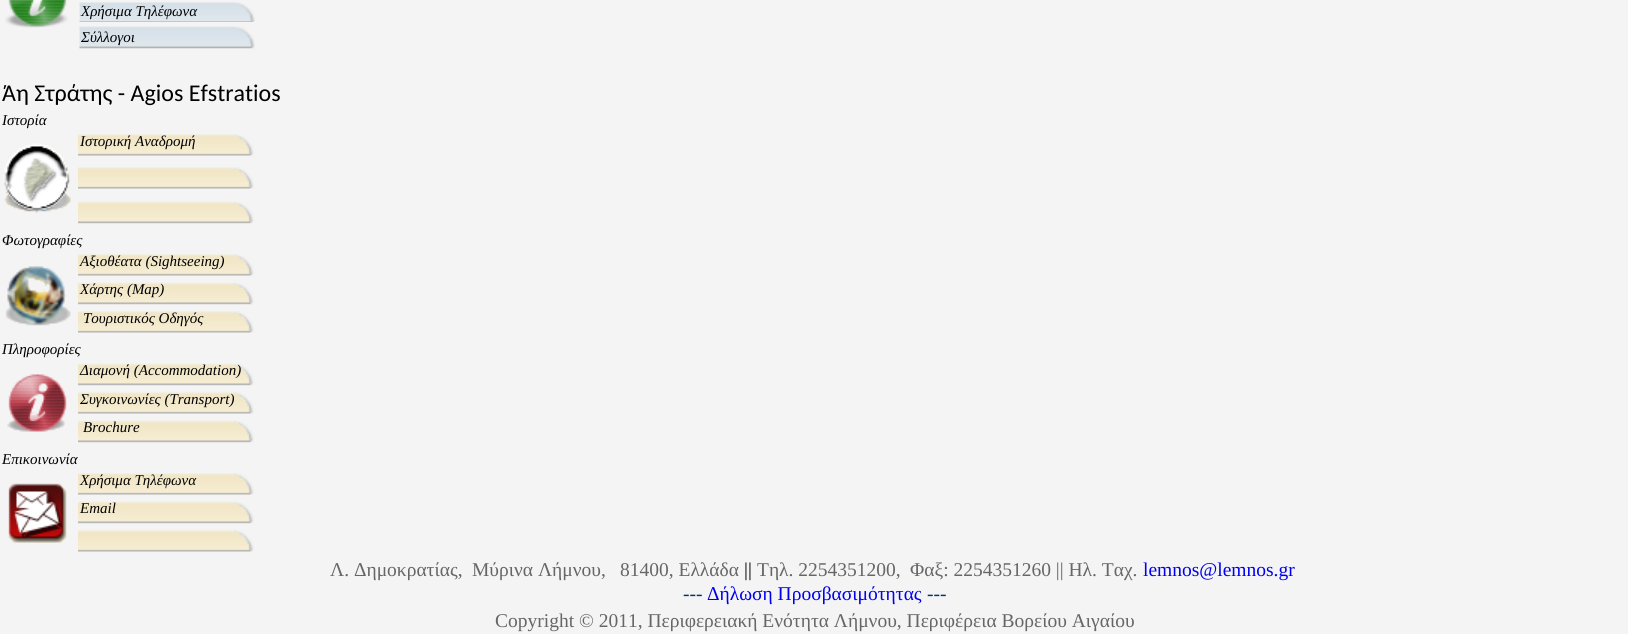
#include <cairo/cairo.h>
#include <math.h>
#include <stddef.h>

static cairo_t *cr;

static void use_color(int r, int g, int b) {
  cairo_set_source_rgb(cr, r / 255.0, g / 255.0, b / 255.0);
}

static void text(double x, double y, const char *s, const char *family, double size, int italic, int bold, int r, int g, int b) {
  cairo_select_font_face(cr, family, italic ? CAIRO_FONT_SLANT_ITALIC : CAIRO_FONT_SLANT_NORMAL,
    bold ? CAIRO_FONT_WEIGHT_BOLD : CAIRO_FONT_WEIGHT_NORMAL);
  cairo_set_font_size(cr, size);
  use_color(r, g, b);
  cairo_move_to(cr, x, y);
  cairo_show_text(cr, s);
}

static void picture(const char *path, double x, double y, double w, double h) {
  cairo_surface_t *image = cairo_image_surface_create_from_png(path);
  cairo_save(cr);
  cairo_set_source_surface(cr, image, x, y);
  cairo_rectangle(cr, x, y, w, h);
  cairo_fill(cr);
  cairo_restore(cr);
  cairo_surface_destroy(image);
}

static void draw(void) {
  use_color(244, 244, 244);
  cairo_paint(cr);
  picture("img_01.png", 5, 0, 63, 28);
  picture("img_02.png", 79, 2, 176, 20);
  picture("img_03.png", 79, 26, 176, 23);
  picture("img_04.png", 3, 143, 68, 70);
  picture("img_05.png", 78, 134, 176, 22);
  picture("img_05.png", 78, 167, 176, 22);
  picture("img_06.png", 78, 201, 176, 23);
  picture("img_05.png", 78, 254, 176, 22);
  picture("img_07.png", 5, 266, 66, 60);
  picture("img_06.png", 78, 282, 176, 23);
  picture("img_05.png", 78, 311, 176, 22);
  picture("img_06.png", 78, 363, 176, 23);
  picture("img_08.png", 7, 374, 60, 58);
  picture("img_05.png", 78, 392, 176, 22);
  picture("img_06.png", 78, 420, 176, 23);
  picture("img_05.png", 78, 473, 176, 22);
  picture("img_09.png", 8, 483, 59, 60);
  picture("img_06.png", 78, 501, 176, 23);
  picture("img_05.png", 78, 530, 176, 22);
  text(81, 16, "Χρήσιμα Τηλέφωνα", "Liberation Serif", 15, 1, 0, 0, 0, 0);
  text(81, 42, "Σύλλογοι", "Liberation Serif", 15, 1, 0, 0, 0, 0);
  text(2, 101, "Άη Στράτης - Agios Efstratios", "Carlito", 24, 0, 0, 0, 0, 0);
  text(2, 125, "Ιστορία", "Liberation Serif", 15, 1, 0, 0, 0, 0);
  text(80, 146, "Ιστορική Αναδρομή", "Liberation Serif", 15, 1, 0, 0, 0, 0);
  text(2, 245, "Φωτογραφίες", "Liberation Serif", 15, 1, 0, 0, 0, 0);
  text(80, 266, "Αξιοθέατα (Sightseeing)", "Liberation Serif", 15, 1, 0, 0, 0, 0);
  text(80, 294, "Χάρτης (Map)", "Liberation Serif", 15, 1, 0, 0, 0, 0);
  text(83, 323, "Τουριστικός Οδηγός", "Liberation Serif", 15, 1, 0, 0, 0, 0);
  text(2, 354, "Πληροφορίες", "Liberation Serif", 15, 1, 0, 0, 0, 0);
  text(80, 375, "Διαμονή (Accommodation)", "Liberation Serif", 15, 1, 0, 0, 0, 0);
  text(80, 404, "Συγκοινωνίες (Transport)", "Liberation Serif", 15, 1, 0, 0, 0, 0);
  text(83, 432, "Brochure", "Liberation Serif", 15, 1, 0, 0, 0, 0);
  text(2, 464, "Επικοινωνία", "Liberation Serif", 15, 1, 0, 0, 0, 0);
  text(80, 485, "Χρήσιμα Τηλέφωνα", "Liberation Serif", 15, 1, 0, 0, 0, 0);
  text(80, 513, "Email", "Liberation Serif", 15, 1, 0, 0, 0, 0);
  text(330, 576, "Λ. Δημοκρατίας,", "Liberation Serif", 19.5, 0, 0, 102, 102, 102);
  text(472, 576, "Μύρινα Λήμνου,", "Liberation Serif", 19.5, 0, 0, 102, 102, 102);
  text(620, 576, "81400, Ελλάδα", "Liberation Serif", 19.5, 0, 0, 102, 102, 102);
  text(744, 576, "||", "Liberation Serif", 19.5, 0, 0, 0, 0, 0);
  text(757, 576, "Τηλ. 2254351200,", "Liberation Serif", 19.5, 0, 0, 102, 102, 102);
  text(910, 576, "Φαξ: 2254351260 || Ηλ. Ταχ.", "Liberation Serif", 19.5, 0, 0, 102, 102, 102);
  text(1143, 576, "lemnos@lemnos.gr", "Liberation Serif", 19.5, 0, 0, 0, 0, 238);
  text(683, 600, "---", "Liberation Serif", 19.5, 0, 0, 0, 51, 102);
  text(707, 600, "Δήλωση Προσβασιμότητας", "Liberation Serif", 19.5, 0, 0, 0, 0, 238);
  text(927, 600, "---", "Liberation Serif", 19.5, 0, 0, 0, 51, 102);
  text(495, 627, "Copyright © 2011, Περιφερειακή Ενότητα Λήμνου, Περιφέρεια Βορείου Αιγαίου", "Liberation Serif", 19.5, 0, 0, 102, 102, 102);
}

int main(void) {
  cairo_surface_t *surface = cairo_image_surface_create(CAIRO_FORMAT_RGB24, 1628, 634);
  cr = cairo_create(surface);
  cairo_font_options_t *options = cairo_font_options_create();
  cairo_font_options_set_hint_metrics(options, CAIRO_HINT_METRICS_OFF);
  cairo_font_options_set_hint_style(options, CAIRO_HINT_STYLE_NONE);
  cairo_set_font_options(cr, options);
  cairo_set_miter_limit(cr, 4);
  draw();
  cairo_surface_write_to_png(surface, "out.png");
  cairo_font_options_destroy(options);
  cairo_destroy(cr);
  cairo_surface_destroy(surface);
  return 0;
}
